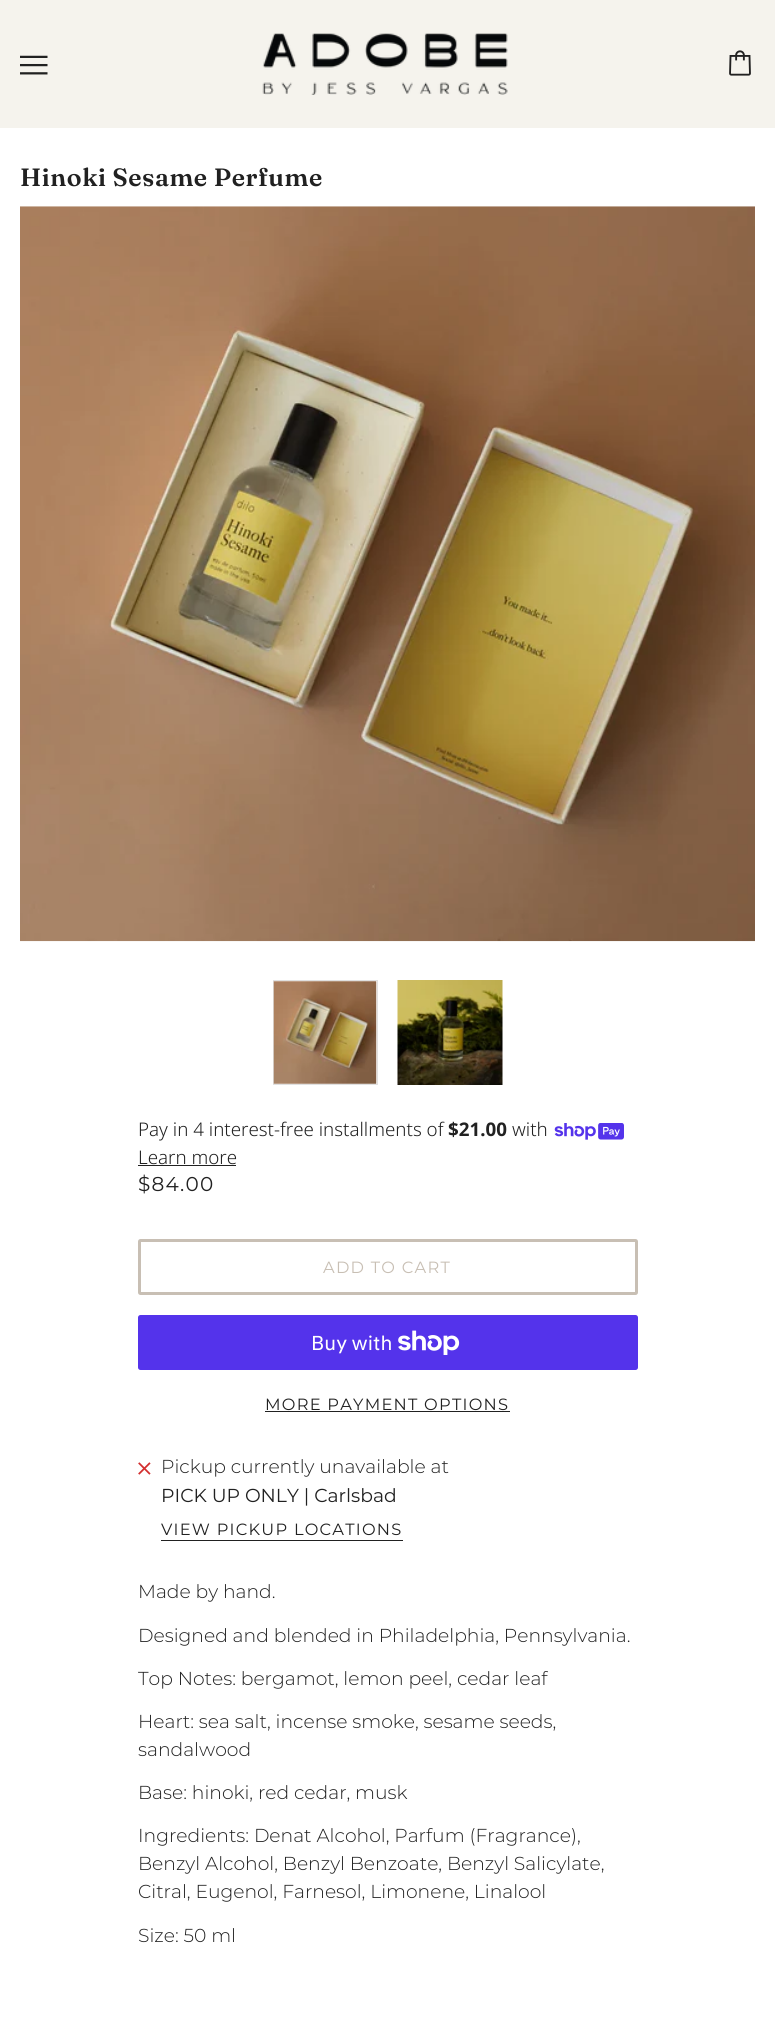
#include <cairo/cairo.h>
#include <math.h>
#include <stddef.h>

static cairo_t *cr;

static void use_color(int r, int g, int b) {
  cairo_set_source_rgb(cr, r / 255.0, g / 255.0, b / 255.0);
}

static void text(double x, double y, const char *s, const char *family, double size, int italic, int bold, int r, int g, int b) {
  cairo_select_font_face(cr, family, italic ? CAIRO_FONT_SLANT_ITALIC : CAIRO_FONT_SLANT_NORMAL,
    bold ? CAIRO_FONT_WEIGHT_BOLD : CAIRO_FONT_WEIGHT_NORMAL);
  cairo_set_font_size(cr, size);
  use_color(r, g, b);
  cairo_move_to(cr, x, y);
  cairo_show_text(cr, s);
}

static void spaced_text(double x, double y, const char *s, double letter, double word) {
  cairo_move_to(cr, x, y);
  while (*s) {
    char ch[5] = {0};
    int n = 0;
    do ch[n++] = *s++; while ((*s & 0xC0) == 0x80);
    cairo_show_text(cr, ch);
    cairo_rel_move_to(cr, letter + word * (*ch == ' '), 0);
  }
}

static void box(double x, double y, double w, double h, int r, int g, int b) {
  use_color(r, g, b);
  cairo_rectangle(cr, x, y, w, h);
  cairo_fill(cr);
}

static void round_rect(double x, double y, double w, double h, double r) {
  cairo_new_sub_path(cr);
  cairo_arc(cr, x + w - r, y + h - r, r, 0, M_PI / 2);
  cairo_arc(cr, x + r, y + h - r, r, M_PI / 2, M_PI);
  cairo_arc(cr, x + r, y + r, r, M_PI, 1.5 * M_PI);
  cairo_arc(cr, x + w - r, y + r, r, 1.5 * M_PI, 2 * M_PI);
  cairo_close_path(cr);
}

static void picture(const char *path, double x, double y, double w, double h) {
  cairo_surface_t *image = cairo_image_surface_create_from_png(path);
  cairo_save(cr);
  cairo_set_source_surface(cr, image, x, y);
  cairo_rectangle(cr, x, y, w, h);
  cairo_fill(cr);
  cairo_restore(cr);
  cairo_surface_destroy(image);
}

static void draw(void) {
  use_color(255, 255, 255);
  cairo_paint(cr);
  box(0, 0, 775, 128, 245, 243, 237);
  picture("img_01.png", 20, 55, 28, 20);
  picture("img_02.png", 262, 33, 246, 62);
  picture("img_03.png", 729, 50, 22, 26);
  picture("img_04.png", 20, 206, 735, 736);
  cairo_rectangle(cr, 273.5, 980.5, 104, 104);
  use_color(224, 224, 224);
  cairo_set_line_width(cr, 1);
  cairo_stroke(cr);
  picture("img_05.png", 273, 981, 104, 103);
  picture("img_06.png", 397, 980, 106, 105);
  picture("img_07.png", 554, 1123, 70, 17);
  box(138, 1165, 98, 1, 33, 33, 33);
  round_rect(139.5, 1240.5, 497, 53, 1);
  use_color(200, 191, 180);
  cairo_set_line_width(cr, 3);
  cairo_stroke(cr);
  use_color(84, 51, 235);
  round_rect(138, 1315, 500, 55, 2.5);
  cairo_fill(cr);
  picture("img_08.png", 398, 1330, 62, 25);
  box(265, 1411, 245, 1, 33, 33, 33);
  picture("img_09.png", 138, 1462, 13, 13);
  box(161, 1540, 242, 1, 33, 33, 33);
  cairo_select_font_face(cr, "Fraunces SemiBold", CAIRO_FONT_SLANT_NORMAL, CAIRO_FONT_WEIGHT_NORMAL);
  cairo_set_font_size(cr, 25);
  spaced_text(20, 186, "Hinoki Sesame Perfume", 0.6, 0);
  text(138, 1136, "Pay in 4 interest-free installments of", "Noto Sans Light", 18.75, 0, 0, 33, 33, 33);
  text(448, 1136, "$21.00", "Noto Sans", 18.75, 0, 1, 33, 33, 33);
  text(512, 1136, "with", "Noto Sans Light", 18.75, 0, 0, 33, 33, 33);
  text(138, 1164, "Learn more", "Noto Sans Light", 18.75, 0, 0, 33, 33, 33);
  cairo_select_font_face(cr, "Montserrat", CAIRO_FONT_SLANT_NORMAL, CAIRO_FONT_WEIGHT_NORMAL);
  cairo_set_font_size(cr, 20);
  spaced_text(138, 1191, "$84.00", 1.25, 0);
  cairo_set_font_size(cr, 16.25);
  use_color(200, 191, 180);
  spaced_text(323, 1273, "ADD TO CART", 1.25, 0);
  text(311, 1350, "Buy with", "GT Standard", 20, 0, 0, 255, 255, 255);
  cairo_select_font_face(cr, "Montserrat", CAIRO_FONT_SLANT_NORMAL, CAIRO_FONT_WEIGHT_NORMAL);
  cairo_set_font_size(cr, 16.25);
  use_color(33, 33, 33);
  spaced_text(265, 1410, "MORE PAYMENT OPTIONS", 1.25, 0);
  text(161, 1473, "Pickup currently unavailable at", "Montserrat Light", 18.75, 0, 0, 33, 33, 33);
  text(161, 1502, "PICK UP ONLY | Carlsbad", "Montserrat", 18.75, 0, 0, 33, 33, 33);
  cairo_set_font_size(cr, 16.25);
  spaced_text(161, 1535, "VIEW PICKUP LOCATIONS", 1.25, 0);
  text(138, 1598, "Made by hand.", "Montserrat Light", 18.75, 0, 0, 33, 33, 33);
  text(138, 1642, "Designed and blended in Philadelphia, Pennsylvania.", "Montserrat Light", 18.75, 0, 0, 33, 33, 33);
  text(138, 1685, "Top Notes: bergamot, lemon peel, cedar leaf", "Montserrat Light", 18.75, 0, 0, 33, 33, 33);
  text(138, 1728, "Heart: sea salt, incense smoke, sesame seeds,", "Montserrat Light", 18.75, 0, 0, 33, 33, 33);
  text(138, 1756, "sandalwood", "Montserrat Light", 18.75, 0, 0, 33, 33, 33);
  text(138, 1799, "Base: hinoki, red cedar, musk", "Montserrat Light", 18.75, 0, 0, 33, 33, 33);
  text(138, 1842, "Ingredients: Denat Alcohol, Parfum (Fragrance),", "Montserrat Light", 18.75, 0, 0, 33, 33, 33);
  text(138, 1870, "Benzyl Alcohol, Benzyl Benzoate, Benzyl Salicylate,", "Montserrat Light", 18.75, 0, 0, 33, 33, 33);
  text(138, 1898, "Citral, Eugenol, Farnesol, Limonene, Linalool", "Montserrat Light", 18.75, 0, 0, 33, 33, 33);
  text(138, 1942, "Size: 50 ml", "Montserrat Light", 18.75, 0, 0, 33, 33, 33);
}

int main(void) {
  cairo_surface_t *surface = cairo_image_surface_create(CAIRO_FORMAT_RGB24, 775, 2035);
  cr = cairo_create(surface);
  cairo_font_options_t *options = cairo_font_options_create();
  cairo_font_options_set_hint_metrics(options, CAIRO_HINT_METRICS_OFF);
  cairo_font_options_set_hint_style(options, CAIRO_HINT_STYLE_NONE);
  cairo_set_font_options(cr, options);
  cairo_set_miter_limit(cr, 4);
  draw();
  cairo_surface_write_to_png(surface, "out.png");
  cairo_font_options_destroy(options);
  cairo_destroy(cr);
  cairo_surface_destroy(surface);
  return 0;
}
